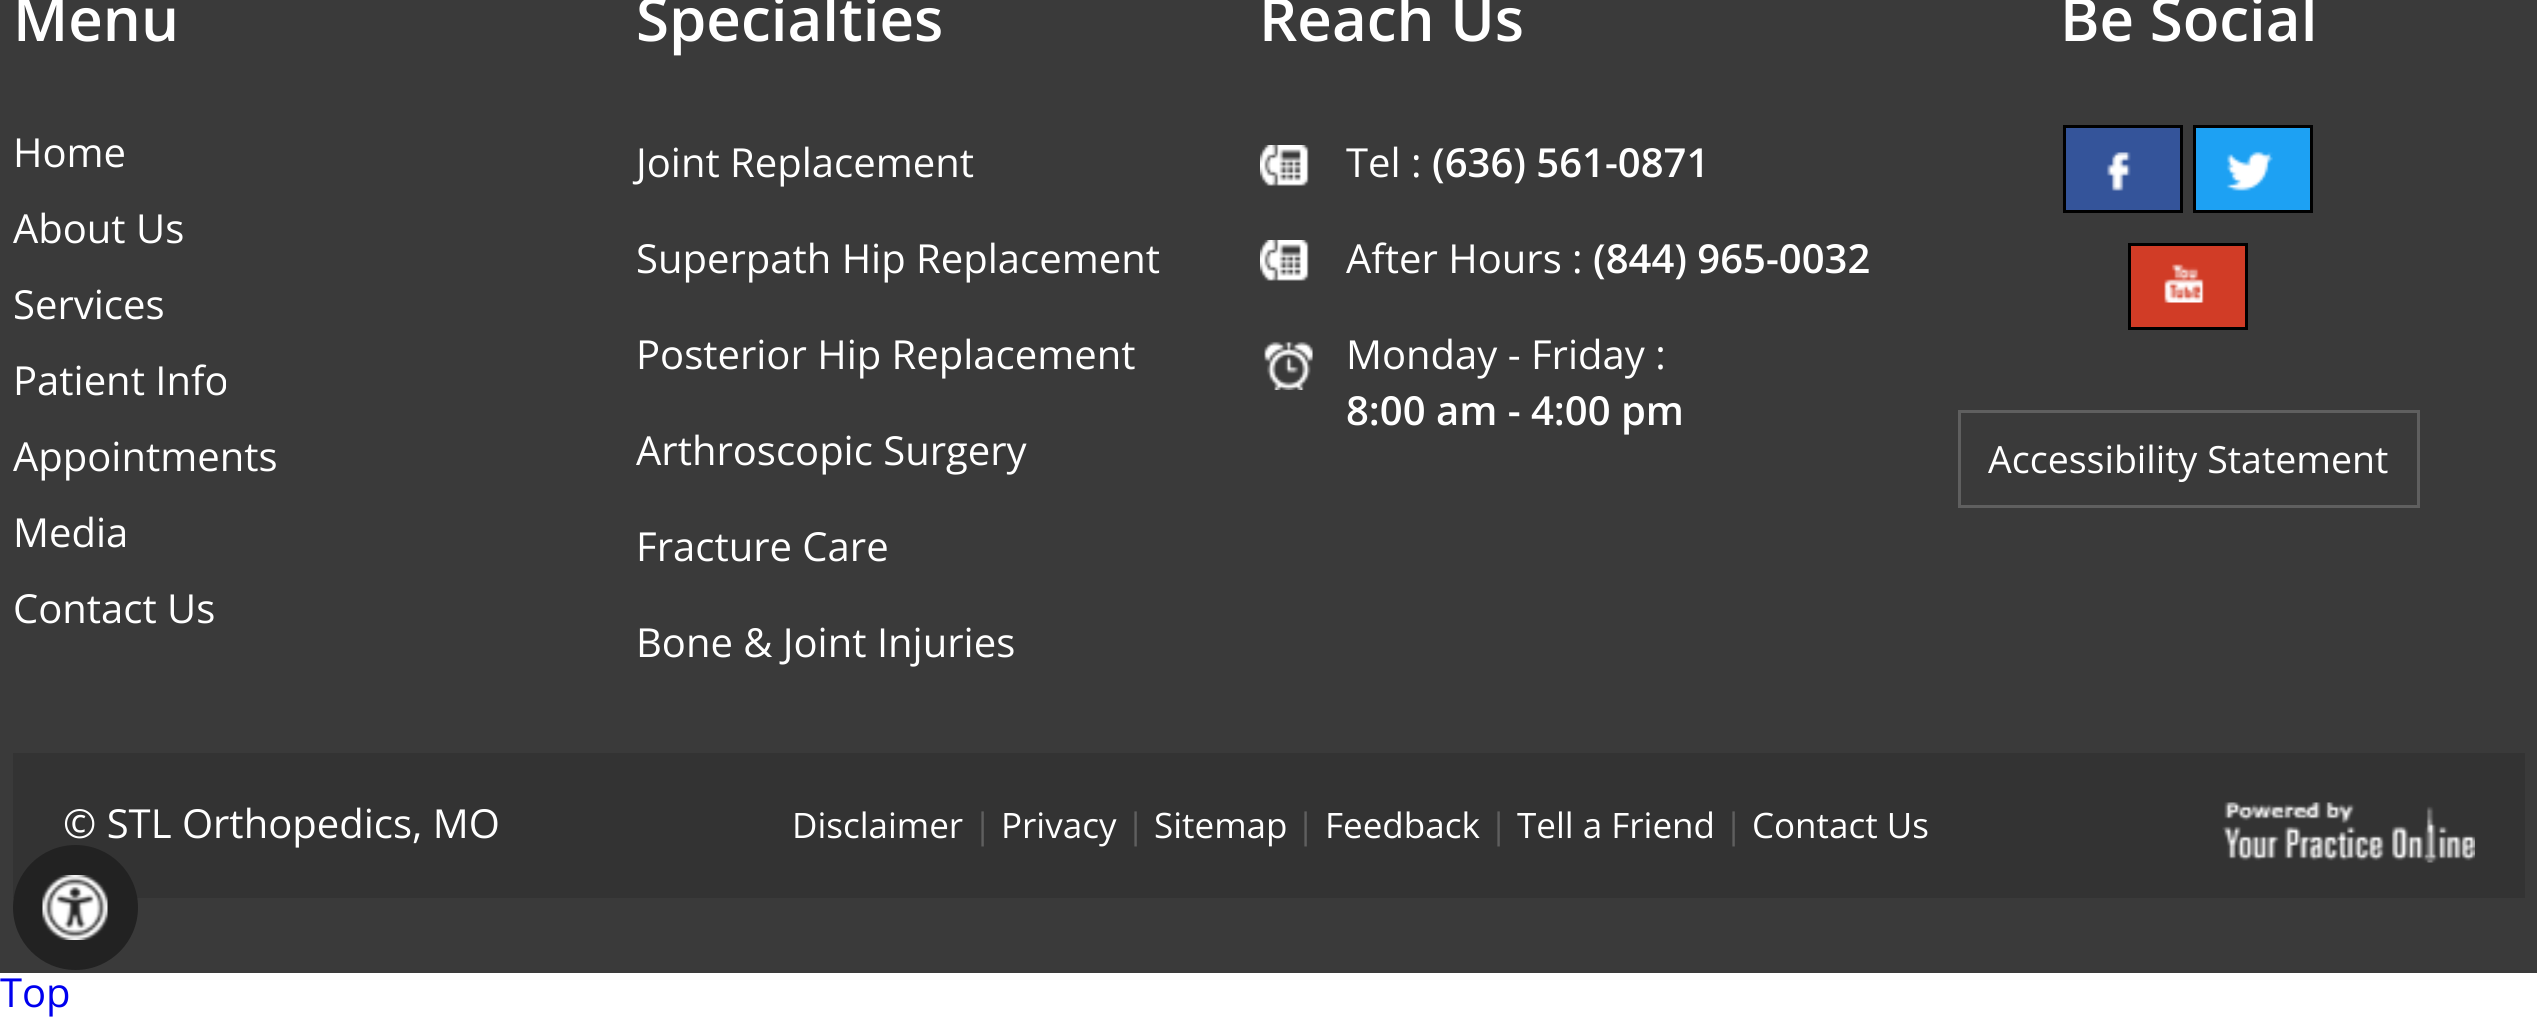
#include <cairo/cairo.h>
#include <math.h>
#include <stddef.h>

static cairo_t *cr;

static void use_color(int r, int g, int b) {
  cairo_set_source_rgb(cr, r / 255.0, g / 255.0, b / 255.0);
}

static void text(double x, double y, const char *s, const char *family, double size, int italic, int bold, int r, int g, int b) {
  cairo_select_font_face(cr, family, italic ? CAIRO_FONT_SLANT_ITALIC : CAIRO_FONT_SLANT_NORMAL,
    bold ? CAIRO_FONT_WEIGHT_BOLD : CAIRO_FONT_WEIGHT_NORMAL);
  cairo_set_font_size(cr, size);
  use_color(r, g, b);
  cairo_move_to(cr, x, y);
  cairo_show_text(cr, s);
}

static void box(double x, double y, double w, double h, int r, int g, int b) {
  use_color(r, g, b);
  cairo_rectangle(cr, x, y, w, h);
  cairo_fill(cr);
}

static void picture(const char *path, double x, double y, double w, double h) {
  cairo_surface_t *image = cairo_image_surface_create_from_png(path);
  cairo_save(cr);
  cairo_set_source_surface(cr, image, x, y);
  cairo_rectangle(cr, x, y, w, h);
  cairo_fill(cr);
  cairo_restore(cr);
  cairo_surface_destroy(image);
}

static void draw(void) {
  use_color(255, 255, 255);
  cairo_paint(cr);
  box(0, 0, 2537, 973, 58, 58, 58);
  picture("img_01.png", 1260, 145, 49, 41);
  picture("img_01.png", 1260, 240, 49, 41);
  picture("img_02.png", 1264, 341, 49, 49);
  box(2066, 128, 114, 82, 52, 84, 154);
  picture("img_03.png", 2106, 152, 25, 39);
  cairo_rectangle(cr, 2064.5, 126.5, 117, 85);
  use_color(0, 0, 0);
  cairo_set_line_width(cr, 3);
  cairo_stroke(cr);
  box(2196, 128, 114, 82, 29, 161, 243);
  picture("img_04.png", 2226, 151, 47, 40);
  cairo_rectangle(cr, 2194.5, 126.5, 117, 85);
  use_color(0, 0, 0);
  cairo_stroke(cr);
  box(2131, 246, 114, 81, 209, 60, 38);
  picture("img_05.png", 2164, 264, 40, 39);
  cairo_rectangle(cr, 2129.5, 244.5, 117, 84);
  use_color(0, 0, 0);
  cairo_stroke(cr);
  cairo_rectangle(cr, 1959.5, 411.5, 459, 95);
  use_color(95, 95, 95);
  cairo_stroke(cr);
  box(13, 753, 2512, 145, 51, 51, 51);
  picture("img_06.png", 2222, 802, 253, 61);
  text(13, 41, "Menu", "Open Sans SemiBold", 60, 0, 0, 255, 255, 255);
  text(13, 167, "Home", "Open Sans", 40, 0, 0, 255, 255, 255);
  text(13, 243, "About Us", "Open Sans", 40, 0, 0, 255, 255, 255);
  text(13, 319, "Services", "Open Sans", 40, 0, 0, 255, 255, 255);
  text(13, 395, "Patient Info", "Open Sans", 40, 0, 0, 255, 255, 255);
  text(13, 471, "Appointments", "Open Sans", 40, 0, 0, 255, 255, 255);
  text(13, 547, "Media", "Open Sans", 40, 0, 0, 255, 255, 255);
  text(13, 623, "Contact Us", "Open Sans", 40, 0, 0, 255, 255, 255);
  text(636, 41, "Specialties", "Open Sans SemiBold", 60, 0, 0, 255, 255, 255);
  text(636, 177, "Joint Replacement", "Open Sans", 40, 0, 0, 255, 255, 255);
  text(636, 273, "Superpath Hip Replacement", "Open Sans", 40, 0, 0, 255, 255, 255);
  text(636, 369, "Posterior Hip Replacement", "Open Sans", 40, 0, 0, 255, 255, 255);
  text(636, 465, "Arthroscopic Surgery", "Open Sans", 40, 0, 0, 255, 255, 255);
  text(636, 561, "Fracture Care", "Open Sans", 40, 0, 0, 255, 255, 255);
  text(636, 657, "Bone & Joint Injuries", "Open Sans", 40, 0, 0, 255, 255, 255);
  text(1259, 41, "Reach Us", "Open Sans SemiBold", 60, 0, 0, 255, 255, 255);
  text(1346, 177, "Tel :", "Open Sans", 40, 0, 0, 255, 255, 255);
  text(1432, 177, "(636) 561-0871", "Open Sans SemiBold", 40, 0, 0, 255, 255, 255);
  text(1346, 273, "After Hours :", "Open Sans", 40, 0, 0, 255, 255, 255);
  text(1593, 273, "(844) 965-0032", "Open Sans SemiBold", 40, 0, 0, 255, 255, 255);
  text(1346, 369, "Monday - Friday :", "Open Sans", 40, 0, 0, 255, 255, 255);
  text(1346, 425, "8:00 am - 4:00 pm", "Open Sans SemiBold", 40, 0, 0, 255, 255, 255);
  text(2060, 41, "Be Social", "Open Sans SemiBold", 60, 0, 0, 255, 255, 255);
  text(1988, 473, "Accessibility Statement", "Open Sans", 37.5, 0, 0, 255, 255, 255);
  text(63, 838, "© STL Orthopedics, MO", "Open Sans", 40, 0, 0, 255, 255, 255);
  text(792, 838, "Disclaimer", "Open Sans", 35, 0, 0, 255, 255, 255);
  text(973, 838, "|", "Open Sans", 35, 0, 0, 95, 95, 95);
  text(1001, 838, "Privacy", "Open Sans", 35, 0, 0, 255, 255, 255);
  text(1126, 838, "|", "Open Sans", 35, 0, 0, 95, 95, 95);
  text(1154, 838, "Sitemap", "Open Sans", 35, 0, 0, 255, 255, 255);
  text(1296, 838, "|", "Open Sans", 35, 0, 0, 95, 95, 95);
  text(1325, 838, "Feedback", "Open Sans", 35, 0, 0, 255, 255, 255);
  text(1489, 838, "|", "Open Sans", 35, 0, 0, 95, 95, 95);
  text(1517, 838, "Tell a Friend", "Open Sans", 35, 0, 0, 255, 255, 255);
  text(1724, 838, "|", "Open Sans", 35, 0, 0, 95, 95, 95);
  text(1752, 838, "Contact Us", "Open Sans", 35, 0, 0, 255, 255, 255);
  use_color(34, 34, 34);
  cairo_new_path(cr);
  cairo_arc(cr, 75.5, 907.5, 62.5, 0, 2 * M_PI);
  cairo_fill(cr);
  picture("img_07.png", 42, 875, 66, 65);
  text(0, 1007, "Top", "Open Sans", 40, 0, 0, 0, 0, 238);
}

int main(void) {
  cairo_surface_t *surface = cairo_image_surface_create(CAIRO_FORMAT_RGB24, 2537, 1019);
  cr = cairo_create(surface);
  cairo_font_options_t *options = cairo_font_options_create();
  cairo_font_options_set_hint_metrics(options, CAIRO_HINT_METRICS_OFF);
  cairo_font_options_set_hint_style(options, CAIRO_HINT_STYLE_NONE);
  cairo_set_font_options(cr, options);
  cairo_set_miter_limit(cr, 4);
  draw();
  cairo_surface_write_to_png(surface, "out.png");
  cairo_font_options_destroy(options);
  cairo_destroy(cr);
  cairo_surface_destroy(surface);
  return 0;
}
